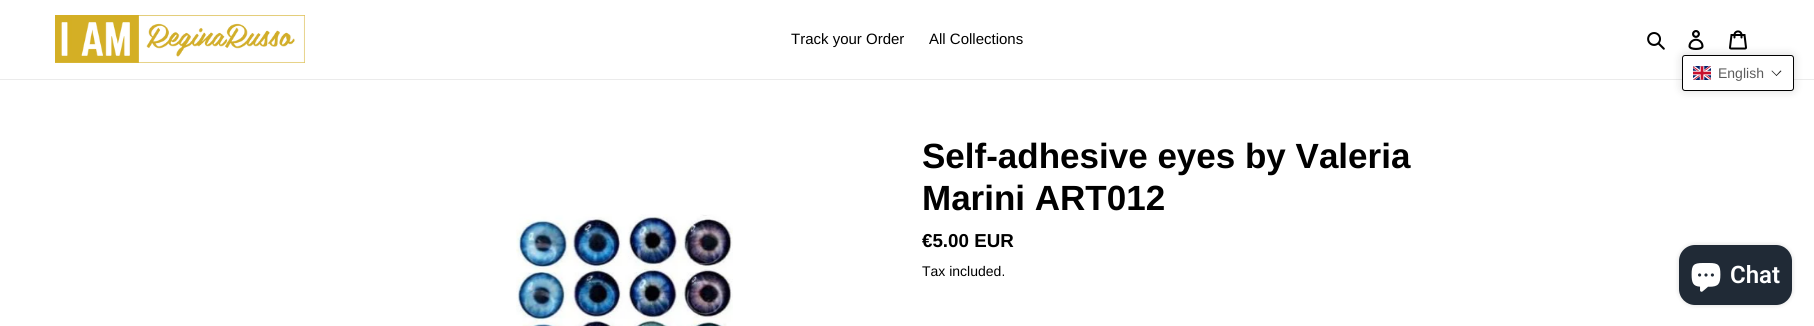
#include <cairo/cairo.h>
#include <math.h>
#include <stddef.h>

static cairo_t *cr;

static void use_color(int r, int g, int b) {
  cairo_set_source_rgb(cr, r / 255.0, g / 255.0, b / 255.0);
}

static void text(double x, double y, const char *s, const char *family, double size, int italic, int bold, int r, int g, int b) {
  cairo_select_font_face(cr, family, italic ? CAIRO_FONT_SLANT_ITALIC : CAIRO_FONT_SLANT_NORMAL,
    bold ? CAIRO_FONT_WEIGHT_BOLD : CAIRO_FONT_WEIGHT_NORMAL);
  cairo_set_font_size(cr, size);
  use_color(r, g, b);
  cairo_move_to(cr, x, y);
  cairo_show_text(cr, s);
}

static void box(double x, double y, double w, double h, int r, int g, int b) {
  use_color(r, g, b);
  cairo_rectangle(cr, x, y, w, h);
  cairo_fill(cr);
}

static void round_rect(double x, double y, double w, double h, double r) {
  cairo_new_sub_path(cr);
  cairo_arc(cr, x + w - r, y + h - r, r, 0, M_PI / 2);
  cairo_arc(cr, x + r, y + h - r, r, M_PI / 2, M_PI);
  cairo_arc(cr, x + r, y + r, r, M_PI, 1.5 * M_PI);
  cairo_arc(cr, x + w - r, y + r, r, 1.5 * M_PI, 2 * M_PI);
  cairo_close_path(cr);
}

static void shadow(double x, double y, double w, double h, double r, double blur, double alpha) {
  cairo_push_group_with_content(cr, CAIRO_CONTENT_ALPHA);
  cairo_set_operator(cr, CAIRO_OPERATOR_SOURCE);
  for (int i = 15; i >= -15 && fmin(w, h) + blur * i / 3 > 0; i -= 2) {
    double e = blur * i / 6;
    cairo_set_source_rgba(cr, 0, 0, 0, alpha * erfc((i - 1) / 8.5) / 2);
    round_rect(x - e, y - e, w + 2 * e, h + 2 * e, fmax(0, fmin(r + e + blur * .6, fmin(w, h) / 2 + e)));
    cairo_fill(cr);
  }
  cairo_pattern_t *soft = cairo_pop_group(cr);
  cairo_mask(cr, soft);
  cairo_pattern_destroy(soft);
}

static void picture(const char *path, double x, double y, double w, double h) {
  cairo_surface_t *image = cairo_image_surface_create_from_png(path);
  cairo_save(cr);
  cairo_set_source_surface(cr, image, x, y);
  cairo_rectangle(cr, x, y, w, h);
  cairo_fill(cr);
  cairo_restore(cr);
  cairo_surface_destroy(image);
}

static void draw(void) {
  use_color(255, 255, 255);
  cairo_paint(cr);
  box(0, 79, 1814, 1, 235, 235, 235);
  picture("img_01.png", 55, 15, 250, 48);
  picture("img_02.png", 1647, 32, 18, 18);
  picture("img_03.png", 1688, 30, 16, 20);
  picture("img_04.png", 1729, 30, 18, 20);
  use_color(0, 0, 0);
  shadow(1682, 55, 112, 36, 3, 5, 0.15);
  use_color(255, 255, 255);
  round_rect(1682.5, 55.5, 111, 35, 2.5);
  cairo_fill_preserve(cr);
  use_color(0, 0, 0);
  cairo_set_line_width(cr, 1);
  cairo_stroke(cr);
  picture("img_05.png", 1693, 66, 18, 14);
  use_color(26, 26, 26);
  cairo_new_path(cr);
  cairo_move_to(cr, 1780.5, 70.5);
  cairo_line_to(cr, 1781.5, 71);
  cairo_line_to(cr, 1776.5, 76);
  cairo_line_to(cr, 1776, 75.5);
  cairo_close_path(cr);
  cairo_fill(cr);
  cairo_new_path(cr);
  cairo_move_to(cr, 1772, 70.5);
  cairo_line_to(cr, 1777, 75.5);
  cairo_line_to(cr, 1776.5, 76);
  cairo_line_to(cr, 1771.5, 71);
  cairo_close_path(cr);
  cairo_fill(cr);
  picture("img_06.png", 516, 214, 217, 112);
  use_color(0, 0, 0);
  shadow(1679, 245, 113, 60, 16, 2.5, 0.15);
  use_color(32, 42, 54);
  round_rect(1679, 245, 113, 60, 16);
  cairo_fill(cr);
  picture("img_07.png", 1691, 263, 30, 29);
  text(791, 44, "Track your Order", "Liberation Sans", 15, 0, 0, 0, 0, 0);
  text(929, 44, "All Collections", "Liberation Sans", 15, 0, 0, 0, 0, 0);
  text(1718, 78, "English", "Liberation Sans", 14, 0, 0, 92, 92, 92);
  text(922, 168, "Self-adhesive eyes by Valeria", "Liberation Sans", 35, 0, 1, 0, 0, 0);
  text(922, 210, "Marini ART012", "Liberation Sans", 35, 0, 1, 0, 0, 0);
  text(922, 247, "€5.00 EUR", "Liberation Sans", 18.75, 0, 1, 0, 0, 0);
  text(922, 276, "Tax included.", "Liberation Sans", 14, 0, 0, 0, 0, 0);
  text(1730, 283, "Chat", "Roboto SemiBold", 24, 0, 0, 255, 255, 255);
}

int main(void) {
  cairo_surface_t *surface = cairo_image_surface_create(CAIRO_FORMAT_RGB24, 1814, 326);
  cr = cairo_create(surface);
  cairo_font_options_t *options = cairo_font_options_create();
  cairo_font_options_set_hint_metrics(options, CAIRO_HINT_METRICS_OFF);
  cairo_font_options_set_hint_style(options, CAIRO_HINT_STYLE_NONE);
  cairo_set_font_options(cr, options);
  cairo_set_miter_limit(cr, 4);
  draw();
  cairo_surface_write_to_png(surface, "out.png");
  cairo_font_options_destroy(options);
  cairo_destroy(cr);
  cairo_surface_destroy(surface);
  return 0;
}
